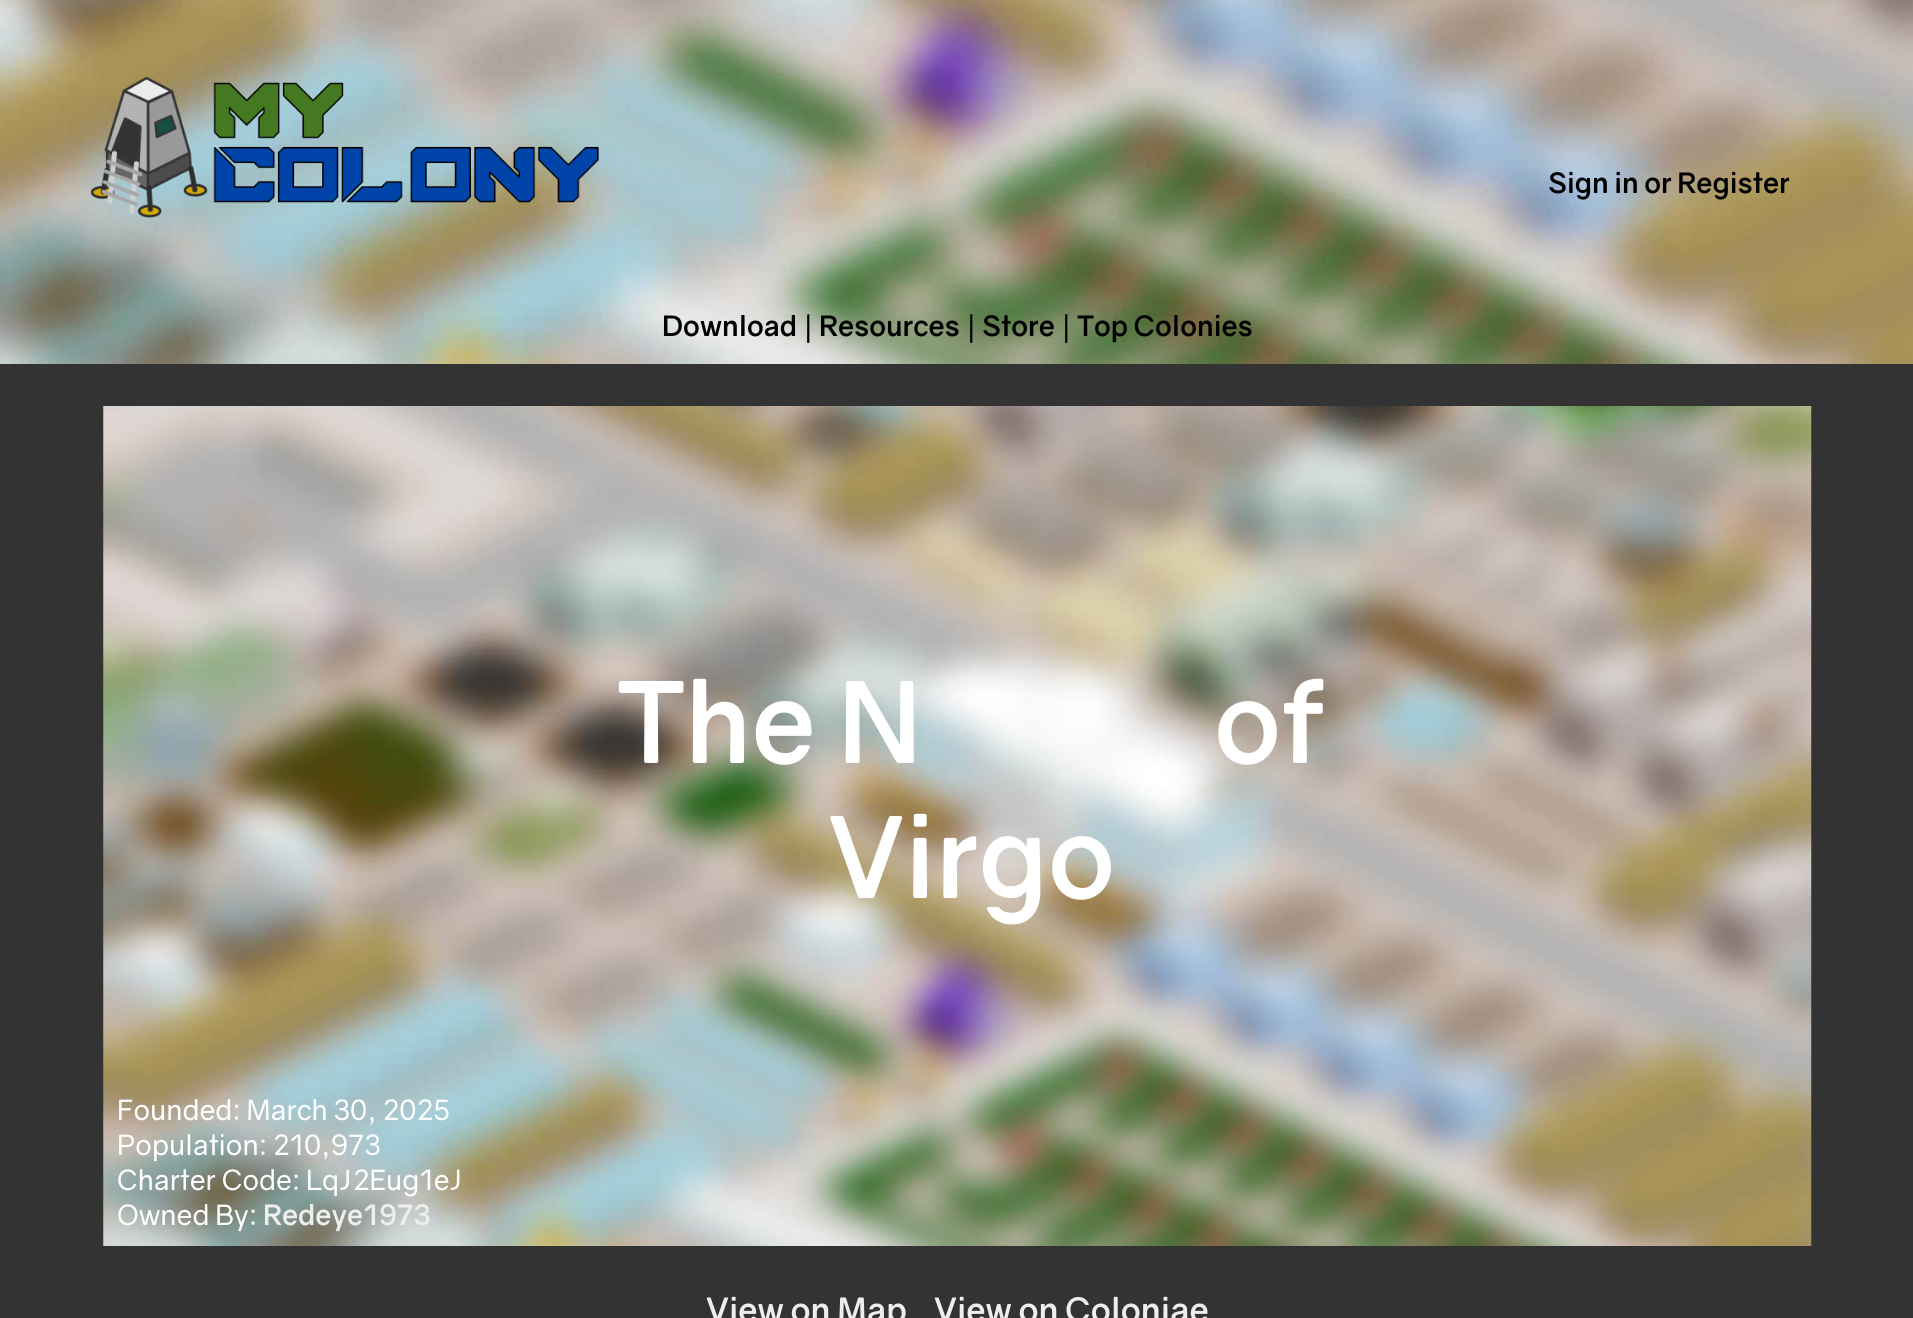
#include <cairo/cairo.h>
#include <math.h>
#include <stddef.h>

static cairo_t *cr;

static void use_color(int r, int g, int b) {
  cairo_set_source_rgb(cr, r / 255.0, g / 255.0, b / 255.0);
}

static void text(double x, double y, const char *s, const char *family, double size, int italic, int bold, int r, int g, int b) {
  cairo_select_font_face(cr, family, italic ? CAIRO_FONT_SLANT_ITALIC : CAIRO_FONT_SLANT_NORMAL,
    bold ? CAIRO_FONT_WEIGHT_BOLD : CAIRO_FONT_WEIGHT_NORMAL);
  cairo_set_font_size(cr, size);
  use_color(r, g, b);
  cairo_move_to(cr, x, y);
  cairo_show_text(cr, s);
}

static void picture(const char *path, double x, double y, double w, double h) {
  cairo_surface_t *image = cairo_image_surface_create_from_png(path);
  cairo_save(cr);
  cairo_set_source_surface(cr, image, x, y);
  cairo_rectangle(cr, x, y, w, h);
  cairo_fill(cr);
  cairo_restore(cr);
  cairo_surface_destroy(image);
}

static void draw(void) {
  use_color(51, 51, 51);
  cairo_paint(cr);
  picture("img_01.png", 0, 0, 1913, 364);
  picture("img_02.png", 90, 76, 509, 142);
  picture("img_03.png", 103, 406, 1709, 840);
  text(1548, 193, "Sign in or Register", "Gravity", 28, 0, 1, 0, 0, 0);
  text(662, 336, "Download", "Gravity", 28, 0, 1, 0, 0, 0);
  text(803, 336, "|", "Gravity", 28, 0, 0, 0, 0, 0);
  text(819, 336, "Resources", "Gravity", 28, 0, 1, 0, 0, 0);
  text(966, 336, "|", "Gravity", 28, 0, 0, 0, 0, 0);
  text(982, 336, "Store", "Gravity", 28, 0, 1, 0, 0, 0);
  text(1061, 336, "|", "Gravity", 28, 0, 0, 0, 0, 0);
  text(1077, 336, "Top Colonies", "Gravity", 28, 0, 1, 0, 0, 0);
  text(617, 763, "The N", "Gravity", 112, 0, 1, 255, 255, 255);
  text(1214, 763, "of", "Gravity", 112, 0, 1, 255, 255, 255);
  text(828, 898, "Virgo", "Gravity", 112, 0, 1, 255, 255, 255);
  text(117, 1120, "Founded: March 30, 2025", "Gravity", 28, 0, 0, 255, 255, 255);
  text(117, 1155, "Population: 210,973", "Gravity", 28, 0, 0, 255, 255, 255);
  text(117, 1190, "Charter Code: LqJ2Eug1eJ", "Gravity", 28, 0, 0, 255, 255, 255);
  text(117, 1225, "Owned By:", "Gravity", 28, 0, 0, 255, 255, 255);
  text(263, 1225, "Redeye1973", "Gravity", 28, 0, 1, 238, 238, 238);
  text(706, 1322, "View on Map", "Gravity", 33.5, 0, 1, 238, 238, 238);
  text(934, 1322, "View on Coloniae", "Gravity", 33.5, 0, 1, 238, 238, 238);
}

int main(void) {
  cairo_surface_t *surface = cairo_image_surface_create(CAIRO_FORMAT_RGB24, 1913, 1318);
  cr = cairo_create(surface);
  cairo_font_options_t *options = cairo_font_options_create();
  cairo_font_options_set_hint_metrics(options, CAIRO_HINT_METRICS_OFF);
  cairo_font_options_set_hint_style(options, CAIRO_HINT_STYLE_NONE);
  cairo_set_font_options(cr, options);
  cairo_set_miter_limit(cr, 4);
  draw();
  cairo_surface_write_to_png(surface, "out.png");
  cairo_font_options_destroy(options);
  cairo_destroy(cr);
  cairo_surface_destroy(surface);
  return 0;
}
